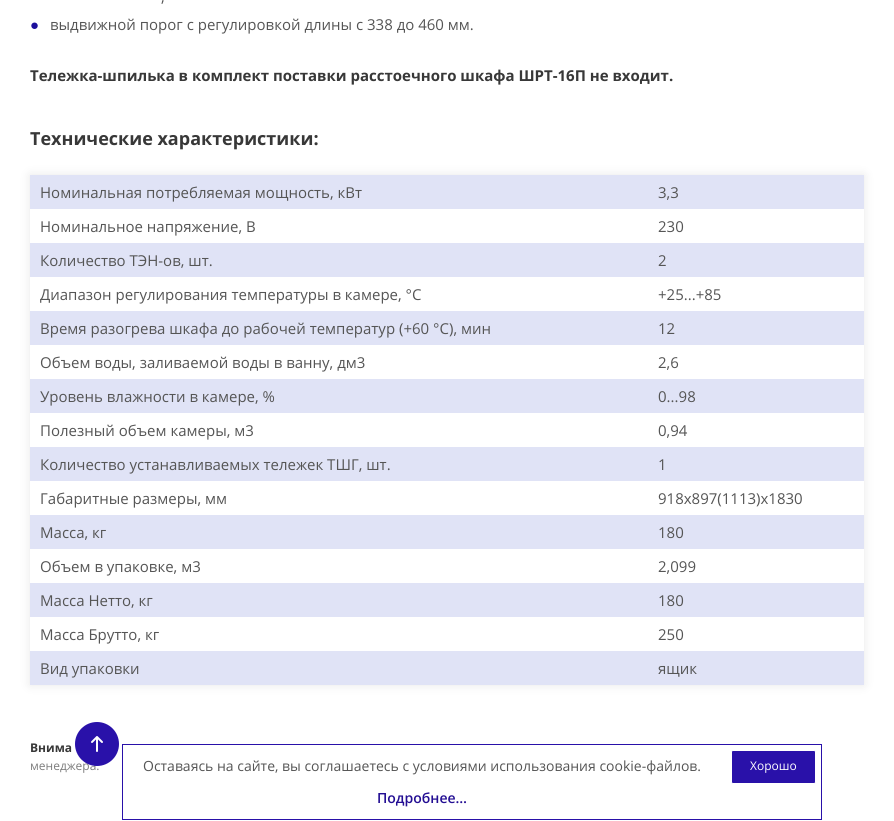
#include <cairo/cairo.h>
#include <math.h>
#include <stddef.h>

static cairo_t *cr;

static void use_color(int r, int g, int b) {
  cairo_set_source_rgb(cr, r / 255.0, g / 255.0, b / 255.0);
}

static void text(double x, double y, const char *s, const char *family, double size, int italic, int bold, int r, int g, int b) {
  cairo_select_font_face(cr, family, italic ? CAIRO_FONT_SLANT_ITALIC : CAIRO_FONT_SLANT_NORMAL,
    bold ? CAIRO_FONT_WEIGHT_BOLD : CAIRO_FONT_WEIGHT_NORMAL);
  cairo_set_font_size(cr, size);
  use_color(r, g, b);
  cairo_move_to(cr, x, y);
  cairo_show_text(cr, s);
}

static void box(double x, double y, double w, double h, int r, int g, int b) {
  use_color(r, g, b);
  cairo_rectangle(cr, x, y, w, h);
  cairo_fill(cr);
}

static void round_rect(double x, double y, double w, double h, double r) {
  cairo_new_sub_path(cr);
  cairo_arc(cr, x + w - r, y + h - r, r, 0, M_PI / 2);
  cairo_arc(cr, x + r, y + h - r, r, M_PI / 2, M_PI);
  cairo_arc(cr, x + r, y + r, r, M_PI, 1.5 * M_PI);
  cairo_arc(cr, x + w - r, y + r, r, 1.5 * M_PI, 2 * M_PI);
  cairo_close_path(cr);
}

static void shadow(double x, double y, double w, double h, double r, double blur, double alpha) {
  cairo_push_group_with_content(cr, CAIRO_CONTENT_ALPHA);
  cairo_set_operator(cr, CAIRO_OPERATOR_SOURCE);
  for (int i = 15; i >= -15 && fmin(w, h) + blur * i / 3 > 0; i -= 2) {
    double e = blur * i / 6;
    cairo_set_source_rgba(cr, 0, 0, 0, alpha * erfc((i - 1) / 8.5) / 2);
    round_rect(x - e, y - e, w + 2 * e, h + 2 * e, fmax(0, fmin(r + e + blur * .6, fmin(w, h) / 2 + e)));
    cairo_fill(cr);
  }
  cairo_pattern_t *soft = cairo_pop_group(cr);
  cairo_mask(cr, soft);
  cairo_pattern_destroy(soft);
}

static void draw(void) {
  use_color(255, 255, 255);
  cairo_paint(cr);
  cairo_save(cr);
  cairo_set_fill_rule(cr, CAIRO_FILL_RULE_EVEN_ODD);
  cairo_new_path(cr);
  cairo_move_to(cr, 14, 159);
  cairo_line_to(cr, 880, 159);
  cairo_line_to(cr, 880, 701);
  cairo_line_to(cr, 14, 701);
  cairo_close_path(cr);
  cairo_move_to(cr, 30, 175);
  cairo_line_to(cr, 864, 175);
  cairo_line_to(cr, 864, 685);
  cairo_line_to(cr, 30, 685);
  cairo_close_path(cr);
  cairo_clip(cr);
  use_color(232, 232, 232);
  shadow(30, 175, 834, 510, 0, 5, 1);
  cairo_restore(cr);
  box(30, 175, 834, 34, 224, 227, 246);
  box(30, 243, 834, 34, 224, 227, 246);
  box(30, 311, 834, 34, 224, 227, 246);
  box(30, 379, 834, 34, 224, 227, 246);
  box(30, 447, 834, 34, 224, 227, 246);
  box(30, 515, 834, 34, 224, 227, 246);
  box(30, 583, 834, 34, 224, 227, 246);
  box(30, 651, 834, 34, 224, 227, 246);
  cairo_rectangle(cr, 122.5, 744.5, 699, 75);
  use_color(41, 17, 169);
  cairo_set_line_width(cr, 1);
  cairo_stroke(cr);
  round_rect(731.5, 750.5, 84, 33, 1.5);
  cairo_fill_preserve(cr);
  use_color(255, 255, 255);
  cairo_stroke(cr);
  text(161, 2, ",", "Open Sans", 15, 0, 0, 85, 85, 85);
  text(30, 30, "●", "Liberation Sans", 15, 0, 0, 28, 15, 156);
  text(50, 30, "выдвижной порог с регулировкой длины с 338 до 460 мм.", "Open Sans", 15, 0, 0, 85, 85, 85);
  text(30, 81, "Тележка-шпилька в комплект поставки расстоечного шкафа ШРТ-16П не входит.", "Open Sans", 15, 0, 1, 56, 56, 56);
  text(30, 145, "Технические характеристики:", "Open Sans", 18, 0, 1, 56, 56, 56);
  text(40, 198, "Номинальная потребляемая мощность, кВт", "Open Sans", 15, 0, 0, 85, 85, 85);
  text(658, 198, "3,3", "Open Sans", 15, 0, 0, 85, 85, 85);
  text(40, 232, "Номинальное напряжение, В", "Open Sans", 15, 0, 0, 85, 85, 85);
  text(658, 232, "230", "Open Sans", 15, 0, 0, 85, 85, 85);
  text(40, 266, "Количество ТЭН-ов, шт.", "Open Sans", 15, 0, 0, 85, 85, 85);
  text(658, 266, "2", "Open Sans", 15, 0, 0, 85, 85, 85);
  text(40, 300, "Диапазон регулирования температуры в камере, °С", "Open Sans", 15, 0, 0, 85, 85, 85);
  text(658, 300, "+25...+85", "Open Sans", 15, 0, 0, 85, 85, 85);
  text(40, 334, "Время разогрева шкафа до рабочей температур (+60 °С), мин", "Open Sans", 15, 0, 0, 85, 85, 85);
  text(658, 334, "12", "Open Sans", 15, 0, 0, 85, 85, 85);
  text(40, 368, "Объем воды, заливаемой воды в ванну, дм3", "Open Sans", 15, 0, 0, 85, 85, 85);
  text(658, 368, "2,6", "Open Sans", 15, 0, 0, 85, 85, 85);
  text(40, 402, "Уровень влажности в камере, %", "Open Sans", 15, 0, 0, 85, 85, 85);
  text(658, 402, "0...98", "Open Sans", 15, 0, 0, 85, 85, 85);
  text(40, 436, "Полезный объем камеры, м3", "Open Sans", 15, 0, 0, 85, 85, 85);
  text(658, 436, "0,94", "Open Sans", 15, 0, 0, 85, 85, 85);
  text(40, 470, "Количество устанавливаемых тележек ТШГ, шт.", "Open Sans", 15, 0, 0, 85, 85, 85);
  text(658, 470, "1", "Open Sans", 15, 0, 0, 85, 85, 85);
  text(40, 504, "Габаритные размеры, мм", "Open Sans", 15, 0, 0, 85, 85, 85);
  text(658, 504, "918x897(1113)x1830", "Open Sans", 15, 0, 0, 85, 85, 85);
  text(40, 538, "Масса, кг", "Open Sans", 15, 0, 0, 85, 85, 85);
  text(658, 538, "180", "Open Sans", 15, 0, 0, 85, 85, 85);
  text(40, 572, "Объем в упаковке, м3", "Open Sans", 15, 0, 0, 85, 85, 85);
  text(658, 572, "2,099", "Open Sans", 15, 0, 0, 85, 85, 85);
  text(40, 606, "Масса Нетто, кг", "Open Sans", 15, 0, 0, 85, 85, 85);
  text(658, 606, "180", "Open Sans", 15, 0, 0, 85, 85, 85);
  text(40, 640, "Масса Брутто, кг", "Open Sans", 15, 0, 0, 85, 85, 85);
  text(658, 640, "250", "Open Sans", 15, 0, 0, 85, 85, 85);
  text(40, 674, "Вид упаковки", "Open Sans", 15, 0, 0, 85, 85, 85);
  text(658, 674, "ящик", "Open Sans", 15, 0, 0, 85, 85, 85);
  text(30, 752, "Внима", "Open Sans", 12, 0, 1, 56, 56, 56);
  text(30, 770, "менеджера.", "Open Sans", 12, 0, 0, 125, 125, 125);
  use_color(41, 17, 169);
  cairo_new_path(cr);
  cairo_arc(cr, 97, 744, 22, 0, 2 * M_PI);
  cairo_fill(cr);
  cairo_new_path(cr);
  cairo_move_to(cr, 97, 737);
  cairo_line_to(cr, 97, 751);
  cairo_move_to(cr, 92, 742);
  cairo_line_to(cr, 97, 737);
  cairo_line_to(cr, 102, 742);
  use_color(255, 255, 255);
  cairo_set_line_width(cr, 2);
  cairo_set_line_cap(cr, CAIRO_LINE_CAP_ROUND);
  cairo_set_line_join(cr, CAIRO_LINE_JOIN_ROUND);
  cairo_stroke(cr);
  text(143, 771, "Оставаясь на сайте, вы соглашаетесь с условиями использования cookie-файлов.", "Open Sans", 14, 0, 0, 85, 85, 85);
  text(750, 770, "Хорошо", "Open Sans", 12, 0, 0, 255, 255, 255);
  text(377, 803, "Подробнее…", "Open Sans SemiBold", 14, 0, 0, 35, 14, 147);
}

int main(void) {
  cairo_surface_t *surface = cairo_image_surface_create(CAIRO_FORMAT_RGB24, 894, 821);
  cr = cairo_create(surface);
  cairo_font_options_t *options = cairo_font_options_create();
  cairo_font_options_set_hint_metrics(options, CAIRO_HINT_METRICS_OFF);
  cairo_font_options_set_hint_style(options, CAIRO_HINT_STYLE_NONE);
  cairo_set_font_options(cr, options);
  cairo_set_miter_limit(cr, 4);
  draw();
  cairo_surface_write_to_png(surface, "out.png");
  cairo_font_options_destroy(options);
  cairo_destroy(cr);
  cairo_surface_destroy(surface);
  return 0;
}
